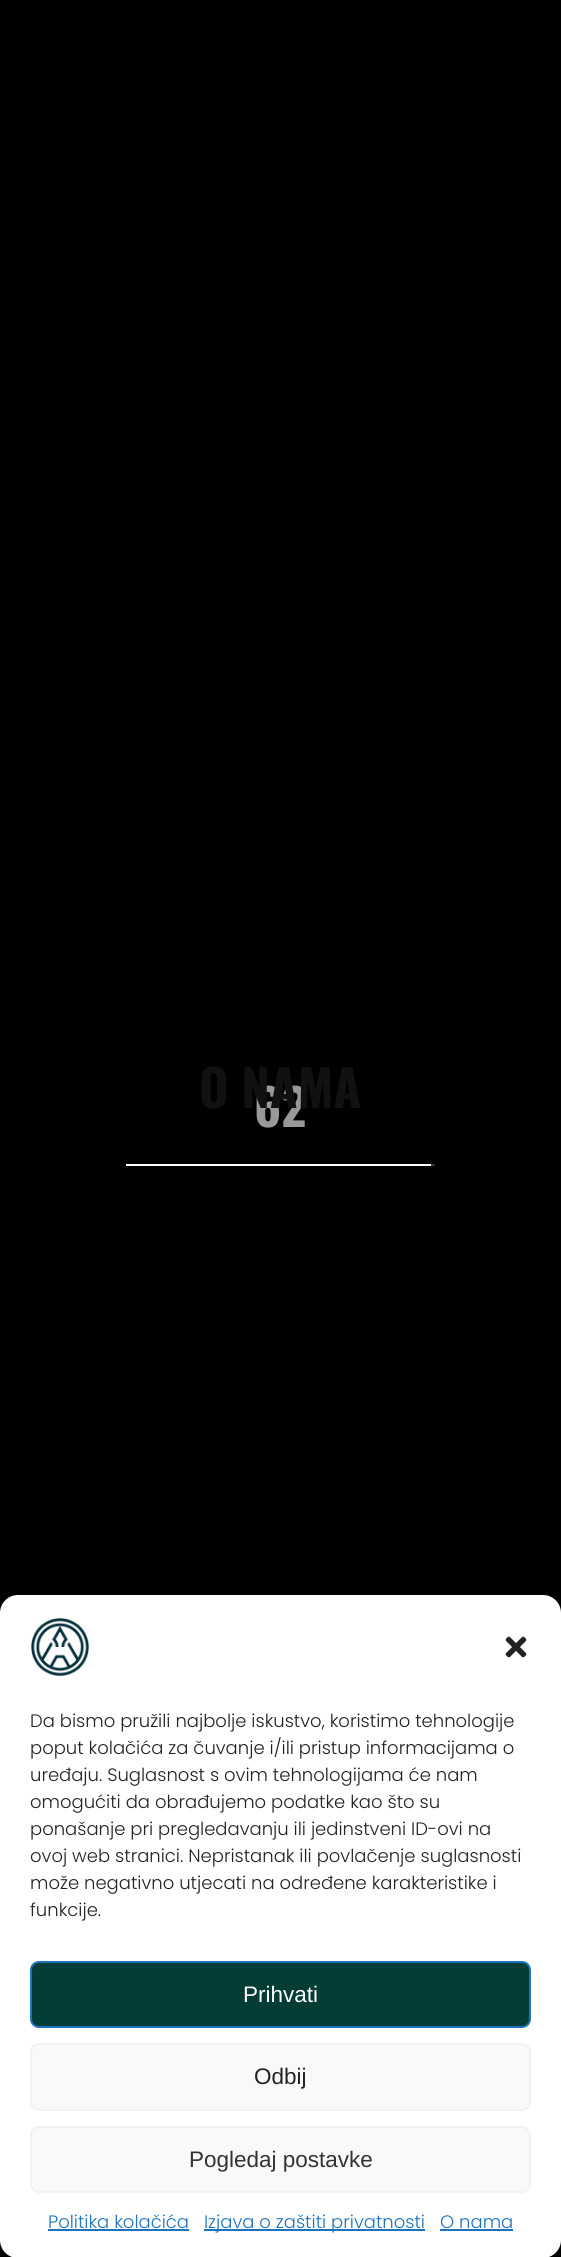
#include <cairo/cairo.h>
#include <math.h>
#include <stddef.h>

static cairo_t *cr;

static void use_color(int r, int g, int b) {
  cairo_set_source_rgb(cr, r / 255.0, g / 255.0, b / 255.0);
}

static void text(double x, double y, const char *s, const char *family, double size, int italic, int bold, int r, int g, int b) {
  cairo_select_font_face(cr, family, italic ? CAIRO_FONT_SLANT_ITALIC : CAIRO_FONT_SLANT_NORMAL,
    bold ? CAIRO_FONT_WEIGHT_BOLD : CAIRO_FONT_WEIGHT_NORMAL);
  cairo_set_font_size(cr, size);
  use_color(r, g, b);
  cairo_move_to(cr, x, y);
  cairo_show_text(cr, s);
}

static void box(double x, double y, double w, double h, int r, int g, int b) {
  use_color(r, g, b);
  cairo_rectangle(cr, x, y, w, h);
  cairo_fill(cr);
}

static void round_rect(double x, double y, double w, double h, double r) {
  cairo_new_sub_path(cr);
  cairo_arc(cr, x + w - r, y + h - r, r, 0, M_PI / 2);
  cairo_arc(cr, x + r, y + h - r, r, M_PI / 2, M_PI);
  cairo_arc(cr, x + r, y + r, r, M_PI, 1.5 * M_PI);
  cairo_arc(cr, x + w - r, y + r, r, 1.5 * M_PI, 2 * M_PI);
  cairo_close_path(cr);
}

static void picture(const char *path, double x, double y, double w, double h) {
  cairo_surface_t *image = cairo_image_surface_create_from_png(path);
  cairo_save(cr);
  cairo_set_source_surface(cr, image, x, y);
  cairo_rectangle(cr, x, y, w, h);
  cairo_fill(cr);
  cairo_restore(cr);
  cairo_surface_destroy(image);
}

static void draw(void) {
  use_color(0, 0, 0);
  cairo_paint(cr);
  box(431, 1164, 4, 2, 51, 51, 51);
  box(126, 1164, 305, 2, 255, 255, 255);
  round_rect(0, 1595, 561, 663, 18);
  cairo_fill(cr);
  picture("img_01.png", 31, 1618, 59, 59);
  picture("img_02.png", 505, 1636, 22, 22);
  use_color(4, 61, 54);
  round_rect(31, 1962, 499, 65, 8);
  cairo_fill_preserve(cr);
  use_color(30, 115, 190);
  cairo_stroke(cr);
  use_color(249, 249, 249);
  round_rect(31, 2044, 499, 66, 8);
  cairo_fill_preserve(cr);
  use_color(242, 242, 242);
  cairo_stroke(cr);
  use_color(249, 249, 249);
  round_rect(31, 2127, 499, 65, 8);
  cairo_fill_preserve(cr);
  use_color(242, 242, 242);
  cairo_stroke(cr);
  box(48, 2229, 141, 2, 30, 115, 190);
  box(204, 2229, 221, 2, 30, 115, 190);
  box(440, 2229, 73, 2, 30, 115, 190);
  text(254, 1127, "62", "Oswald", 50.5, 0, 1, 153, 153, 153);
  text(199, 1108, "O NAMA", "Oswald", 50.5, 0, 1, 17, 17, 17);
  text(30, 1727, "Da bismo pružili najbolje iskustvo, koristimo tehnologije", "Poppins Light", 18, 0, 0, 34, 34, 34);
  text(30, 1754, "poput kolačića za čuvanje i/ili pristup informacijama o", "Poppins Light", 18, 0, 0, 34, 34, 34);
  text(30, 1781, "uređaju. Suglasnost s ovim tehnologijama će nam", "Poppins Light", 18, 0, 0, 34, 34, 34);
  text(30, 1808, "omogućiti da obrađujemo podatke kao što su", "Poppins Light", 18, 0, 0, 34, 34, 34);
  text(30, 1835, "ponašanje pri pregledavanju ili jedinstveni ID-ovi na", "Poppins Light", 18, 0, 0, 34, 34, 34);
  text(30, 1862, "ovoj web stranici. Nepristanak ili povlačenje suglasnosti", "Poppins Light", 18, 0, 0, 34, 34, 34);
  text(30, 1889, "može negativno utjecati na određene karakteristike i", "Poppins Light", 18, 0, 0, 34, 34, 34);
  text(30, 1916, "funkcije.", "Poppins Light", 18, 0, 0, 34, 34, 34);
  text(243, 2002, "Prihvati", "Liberation Sans", 22.5, 0, 0, 255, 255, 255);
  text(254, 2084, "Odbij", "Liberation Sans", 22.5, 0, 0, 34, 34, 34);
  text(189, 2167, "Pogledaj postavke", "Liberation Sans", 22.5, 0, 0, 51, 51, 51);
  text(48, 2228, "Politika kolačića", "Poppins Light", 18, 0, 0, 30, 115, 190);
  text(204, 2228, "Izjava o zaštiti privatnosti", "Poppins Light", 18, 0, 0, 30, 115, 190);
  text(440, 2228, "O nama", "Poppins Light", 18, 0, 0, 30, 115, 190);
}

int main(void) {
  cairo_surface_t *surface = cairo_image_surface_create(CAIRO_FORMAT_RGB24, 561, 2257);
  cr = cairo_create(surface);
  cairo_font_options_t *options = cairo_font_options_create();
  cairo_font_options_set_hint_metrics(options, CAIRO_HINT_METRICS_OFF);
  cairo_font_options_set_hint_style(options, CAIRO_HINT_STYLE_NONE);
  cairo_set_font_options(cr, options);
  cairo_set_miter_limit(cr, 4);
  draw();
  cairo_surface_write_to_png(surface, "out.png");
  cairo_font_options_destroy(options);
  cairo_destroy(cr);
  cairo_surface_destroy(surface);
  return 0;
}
